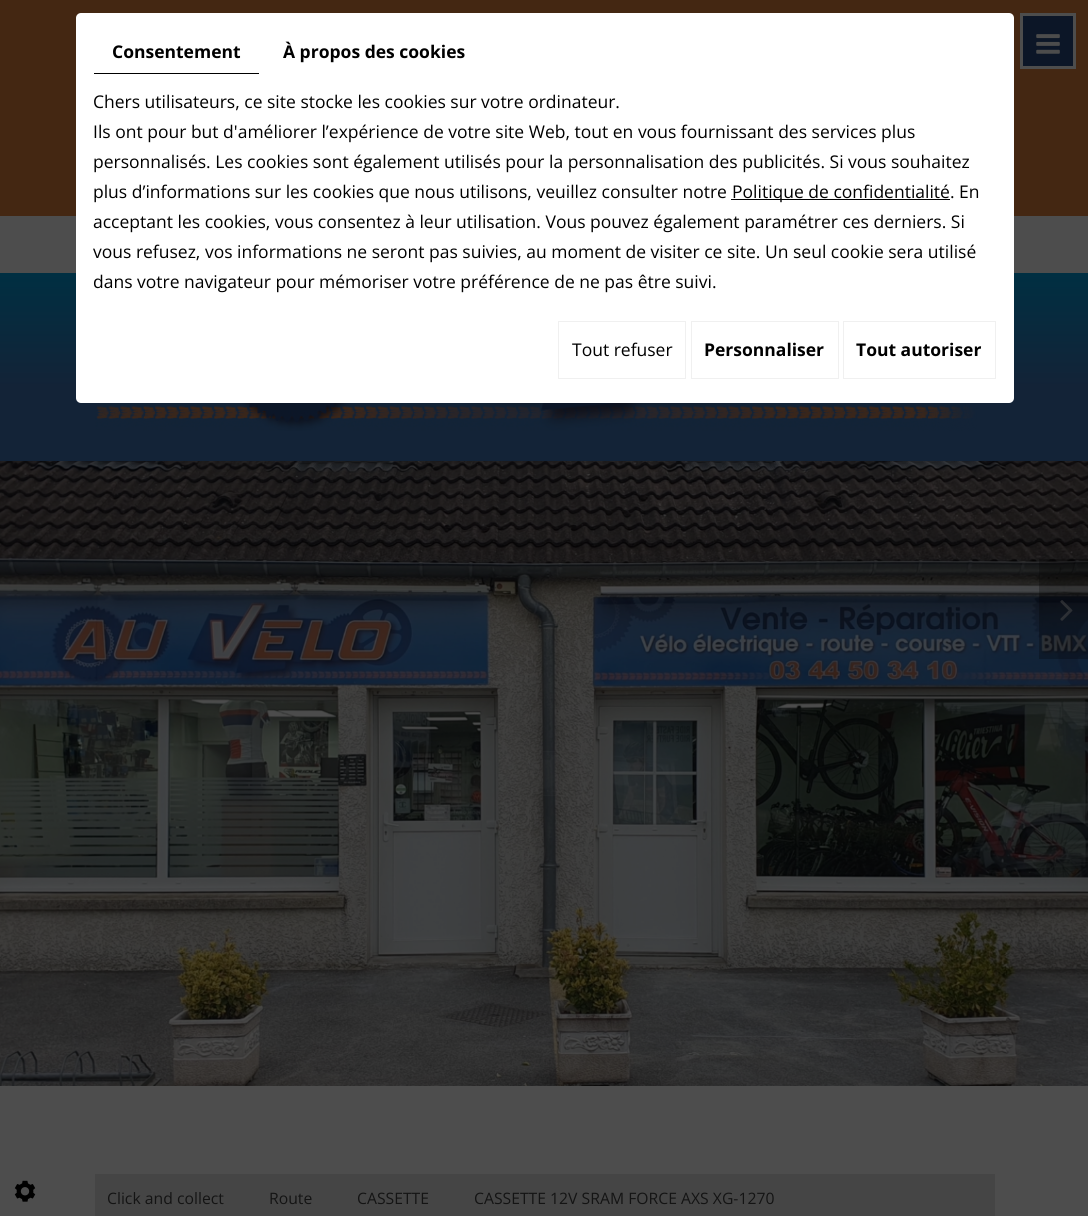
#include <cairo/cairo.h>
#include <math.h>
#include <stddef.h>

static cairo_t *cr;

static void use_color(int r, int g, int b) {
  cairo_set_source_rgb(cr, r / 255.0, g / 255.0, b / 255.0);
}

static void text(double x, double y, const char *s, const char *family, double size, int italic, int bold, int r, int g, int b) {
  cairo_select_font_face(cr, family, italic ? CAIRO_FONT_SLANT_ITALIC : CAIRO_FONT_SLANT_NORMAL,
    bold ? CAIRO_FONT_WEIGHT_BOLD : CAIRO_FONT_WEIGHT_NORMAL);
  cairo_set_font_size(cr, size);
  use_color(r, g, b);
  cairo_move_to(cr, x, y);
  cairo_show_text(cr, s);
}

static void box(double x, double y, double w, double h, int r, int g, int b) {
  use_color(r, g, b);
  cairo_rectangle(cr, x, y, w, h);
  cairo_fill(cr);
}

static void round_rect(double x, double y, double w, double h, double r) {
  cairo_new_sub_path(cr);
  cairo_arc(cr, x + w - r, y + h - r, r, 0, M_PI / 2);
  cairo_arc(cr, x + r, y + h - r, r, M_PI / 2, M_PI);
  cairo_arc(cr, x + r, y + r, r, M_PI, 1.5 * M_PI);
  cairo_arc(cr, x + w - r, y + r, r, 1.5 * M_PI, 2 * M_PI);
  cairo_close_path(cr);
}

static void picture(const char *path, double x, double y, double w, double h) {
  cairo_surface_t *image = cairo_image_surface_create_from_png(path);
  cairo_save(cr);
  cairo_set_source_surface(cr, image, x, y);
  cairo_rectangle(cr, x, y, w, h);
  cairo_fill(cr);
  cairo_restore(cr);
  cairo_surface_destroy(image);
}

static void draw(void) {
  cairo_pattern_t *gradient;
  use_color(77, 77, 77);
  cairo_paint(cr);
  box(0, 0, 1088, 216, 68, 39, 18);
  gradient = cairo_pattern_create_linear(544, 461, 544, 273);
  cairo_pattern_add_color_stop_rgba(gradient, 0, 0.075, 0.137, 0.216, 1);
  cairo_pattern_add_color_stop_rgba(gradient, 0.39, 0.075, 0.137, 0.216, 1);
  cairo_pattern_add_color_stop_rgba(gradient, 1, 0, 0.184, 0.259, 1);
  cairo_set_source(cr, gradient);
  cairo_pattern_destroy(gradient);
  cairo_rectangle(cr, 0, 273, 1088, 188);
  cairo_fill(cr);
  picture("img_01.png", 95, 403, 882, 28);
  use_color(255, 255, 255);
  round_rect(76, 13, 938, 390, 5);
  cairo_fill(cr);
  box(94, 73, 165, 1, 0, 0, 0);
  box(731, 199, 219, 1, 0, 0, 0);
  cairo_rectangle(cr, 558.5, 321.5, 127, 57);
  use_color(240, 240, 240);
  cairo_set_line_width(cr, 1);
  cairo_stroke(cr);
  cairo_rectangle(cr, 691.5, 321.5, 147, 57);
  cairo_stroke(cr);
  cairo_rectangle(cr, 843.5, 321.5, 152, 57);
  cairo_stroke(cr);
  use_color(12, 22, 39);
  cairo_rectangle(cr, 1021.5, 14.5, 53, 53);
  cairo_fill_preserve(cr);
  use_color(77, 77, 77);
  cairo_set_line_width(cr, 3);
  cairo_stroke(cr);
  picture("img_02.png", 1036, 34, 24, 20);
  picture("img_03.png", 0, 461, 1088, 625);
  cairo_set_source_rgba(cr, 0.302, 0.302, 0.302, 0.06);
  cairo_rectangle(cr, 543, 751, 12, 45);
  cairo_fill(cr);
  picture("img_04.png", 527, 755, 36, 37);
  cairo_rectangle(cr, 523.5, 751.5, 44, 44);
  cairo_set_line_width(cr, 1);
  cairo_stroke(cr);
  picture("img_05.png", 14, 1180, 22, 22);
  cairo_set_source_rgba(cr, 0, 0, 0, 0.25);
  cairo_rectangle(cr, 1039, 559, 49, 100);
  cairo_fill(cr);
  picture("img_06.png", 1060, 600, 13, 21);
  box(95, 1174, 900, 42, 69, 69, 69);
  text(112, 58, "Consentement", "Open Sans", 17.5, 0, 1, 0, 0, 0);
  text(283, 58, "À propos des cookies", "Open Sans", 17.5, 0, 1, 0, 0, 0);
  text(93, 108, "Chers utilisateurs, ce site stocke les cookies sur votre ordinateur.", "Open Sans", 17.5, 0, 0, 0, 0, 0);
  text(93, 138, "Ils ont pour but d'améliorer l’expérience de votre site Web, tout en vous fournissant des services plus", "Open Sans", 17.5, 0, 0, 0, 0, 0);
  text(93, 168, "personnalisés. Les cookies sont également utilisés pour la personnalisation des publicités. Si vous souhaitez", "Open Sans", 17.5, 0, 0, 0, 0, 0);
  text(93, 198, "plus d’informations sur les cookies que nous utilisons, veuillez consulter notre", "Open Sans", 17.5, 0, 0, 0, 0, 0);
  text(732, 198, "Politique de confidentialité. En", "Open Sans", 17.5, 0, 0, 0, 0, 0);
  text(93, 228, "acceptant les cookies, vous consentez à leur utilisation. Vous pouvez également paramétrer ces derniers. Si", "Open Sans", 17.5, 0, 0, 0, 0, 0);
  text(93, 258, "vous refusez, vos informations ne seront pas suivies, au moment de visiter ce site. Un seul cookie sera utilisé", "Open Sans", 17.5, 0, 0, 0, 0, 0);
  text(93, 288, "dans votre navigateur pour mémoriser votre préférence de ne pas être suivi.", "Open Sans", 17.5, 0, 0, 0, 0, 0);
  text(572, 356, "Tout refuser", "Open Sans", 17.5, 0, 0, 0, 0, 0);
  text(704, 356, "Personnaliser", "Open Sans", 17.5, 0, 1, 0, 0, 0);
  text(856, 356, "Tout autoriser", "Open Sans", 17.5, 0, 1, 0, 0, 0);
  text(107, 1204, "Click and collect", "Open Sans", 15.75, 0, 0, 20, 20, 20);
  text(269, 1204, "Route", "Open Sans", 15.75, 0, 0, 20, 20, 20);
  text(357, 1204, "CASSETTE", "Open Sans", 15.75, 0, 0, 20, 20, 20);
  text(474, 1204, "CASSETTE 12V SRAM FORCE AXS XG-1270", "Open Sans", 15.75, 0, 0, 20, 20, 20);
}

int main(void) {
  cairo_surface_t *surface = cairo_image_surface_create(CAIRO_FORMAT_RGB24, 1088, 1216);
  cr = cairo_create(surface);
  cairo_font_options_t *options = cairo_font_options_create();
  cairo_font_options_set_hint_metrics(options, CAIRO_HINT_METRICS_OFF);
  cairo_font_options_set_hint_style(options, CAIRO_HINT_STYLE_NONE);
  cairo_set_font_options(cr, options);
  cairo_set_miter_limit(cr, 4);
  draw();
  cairo_surface_write_to_png(surface, "out.png");
  cairo_font_options_destroy(options);
  cairo_destroy(cr);
  cairo_surface_destroy(surface);
  return 0;
}
